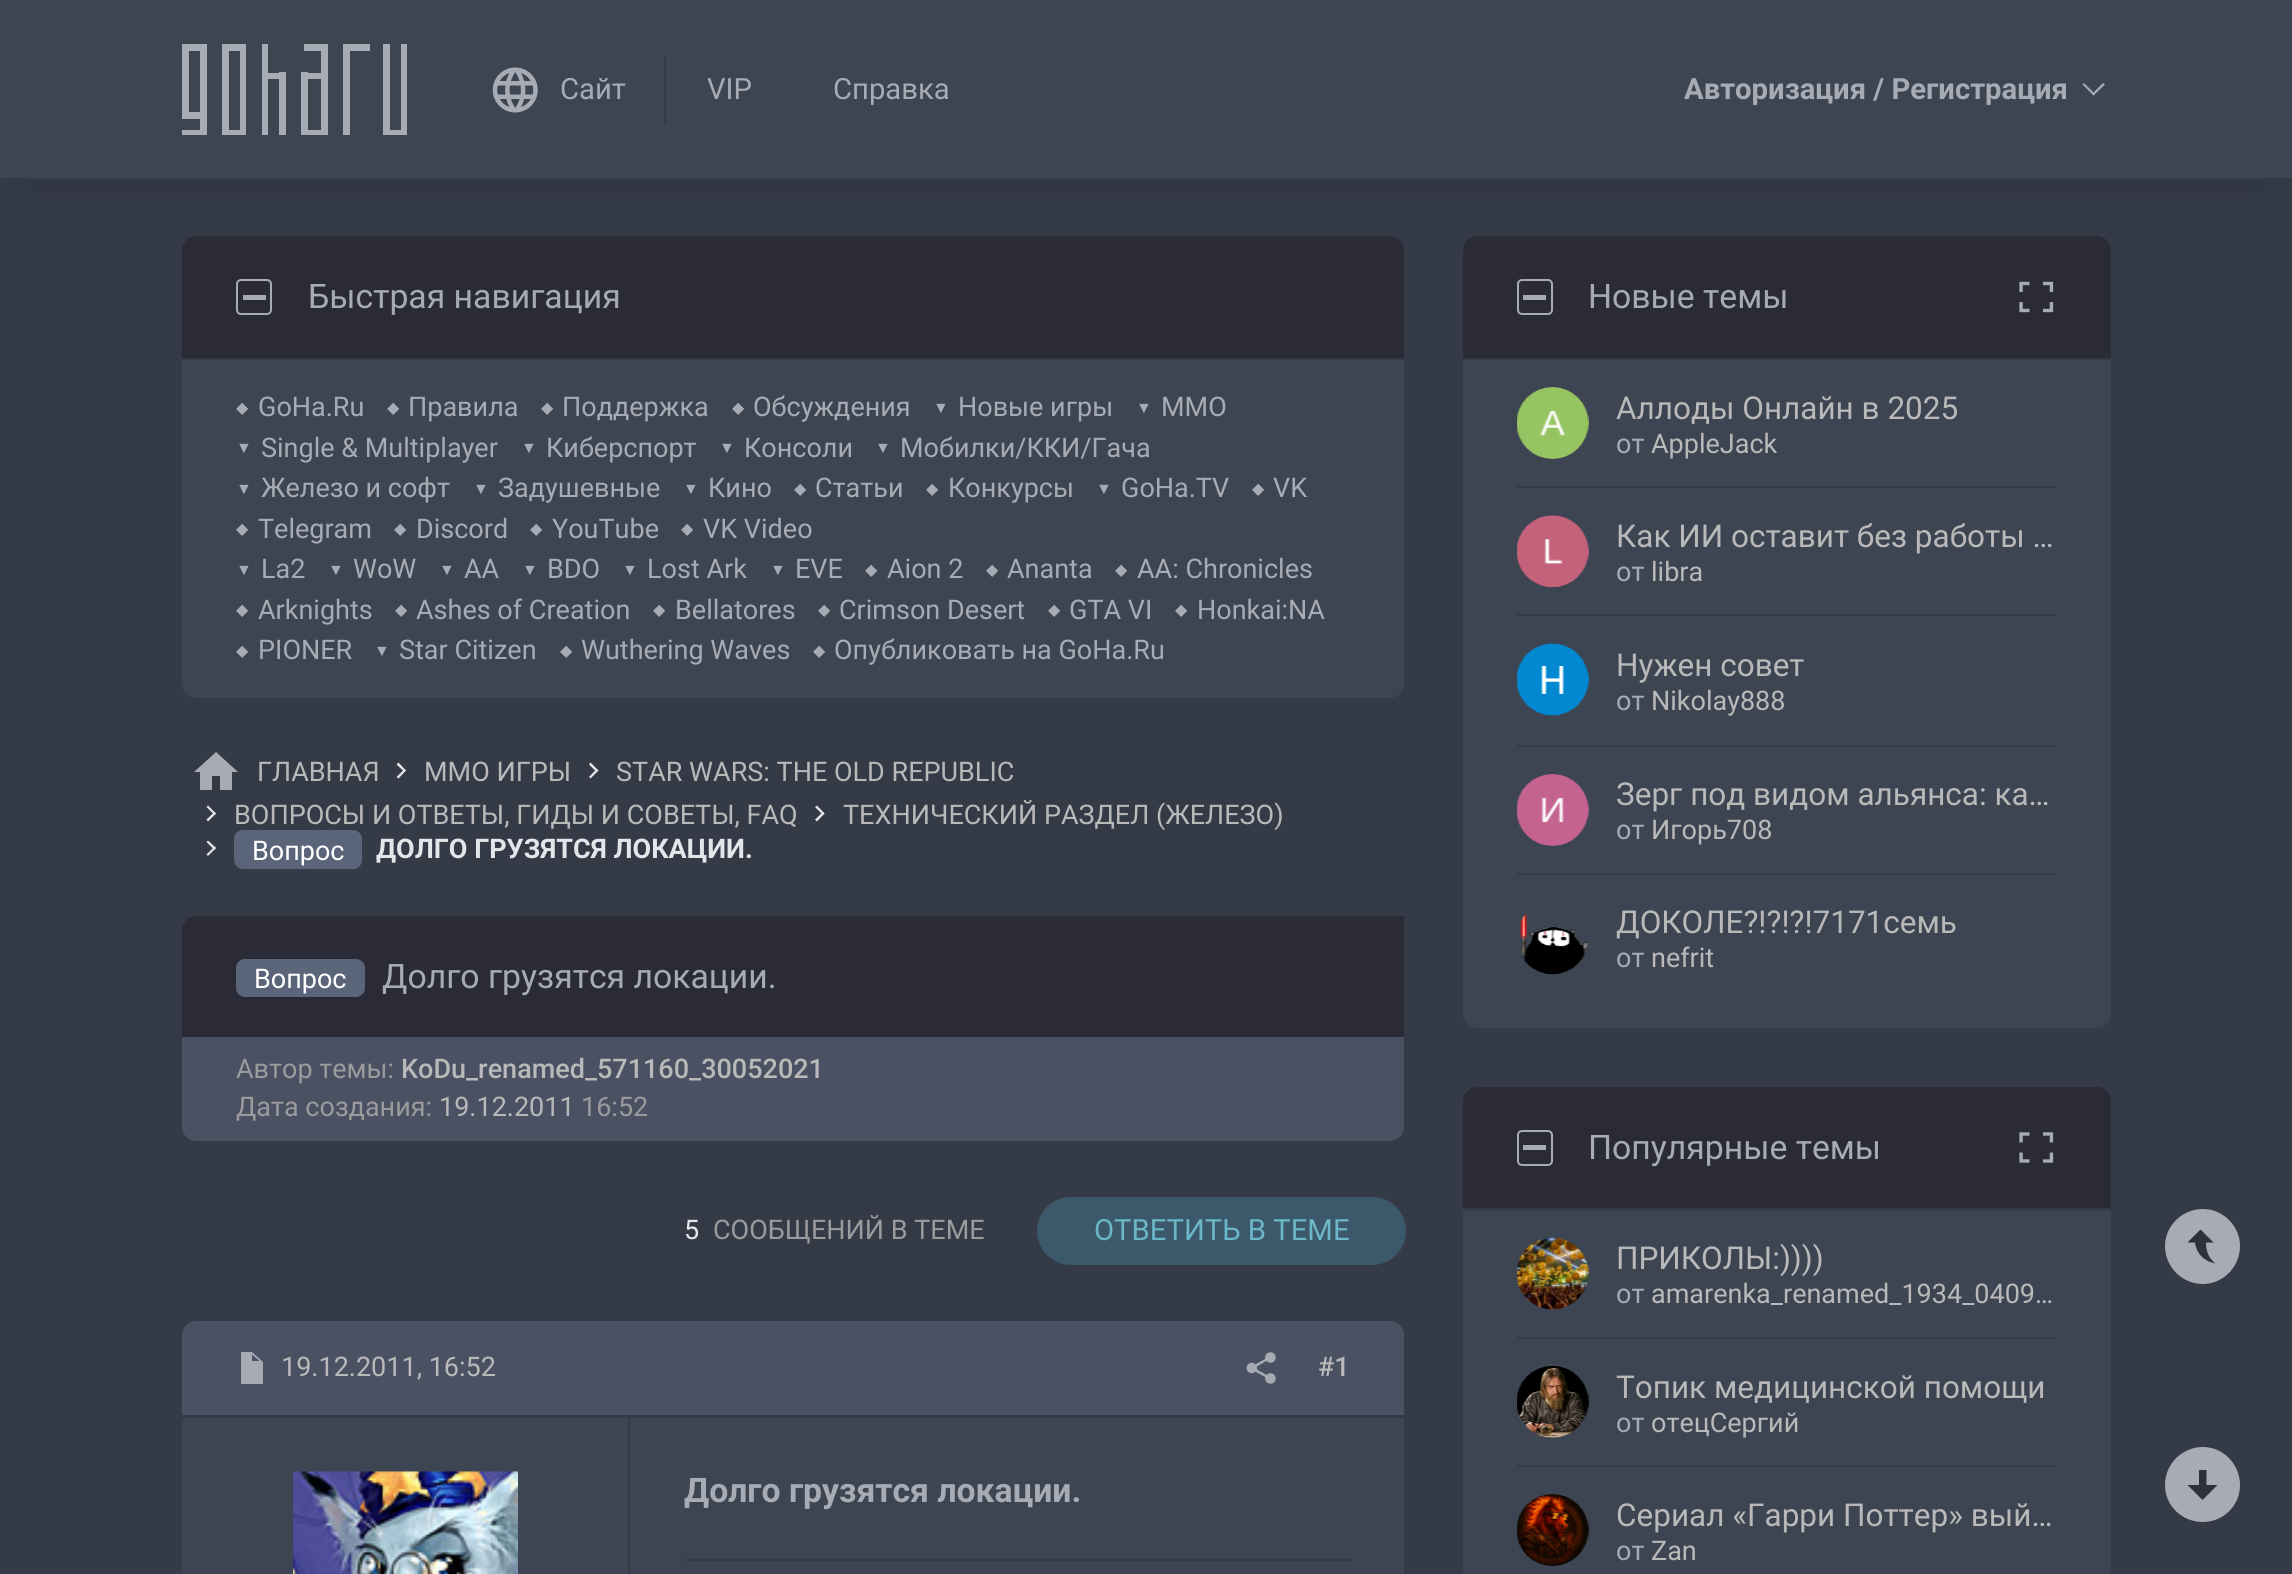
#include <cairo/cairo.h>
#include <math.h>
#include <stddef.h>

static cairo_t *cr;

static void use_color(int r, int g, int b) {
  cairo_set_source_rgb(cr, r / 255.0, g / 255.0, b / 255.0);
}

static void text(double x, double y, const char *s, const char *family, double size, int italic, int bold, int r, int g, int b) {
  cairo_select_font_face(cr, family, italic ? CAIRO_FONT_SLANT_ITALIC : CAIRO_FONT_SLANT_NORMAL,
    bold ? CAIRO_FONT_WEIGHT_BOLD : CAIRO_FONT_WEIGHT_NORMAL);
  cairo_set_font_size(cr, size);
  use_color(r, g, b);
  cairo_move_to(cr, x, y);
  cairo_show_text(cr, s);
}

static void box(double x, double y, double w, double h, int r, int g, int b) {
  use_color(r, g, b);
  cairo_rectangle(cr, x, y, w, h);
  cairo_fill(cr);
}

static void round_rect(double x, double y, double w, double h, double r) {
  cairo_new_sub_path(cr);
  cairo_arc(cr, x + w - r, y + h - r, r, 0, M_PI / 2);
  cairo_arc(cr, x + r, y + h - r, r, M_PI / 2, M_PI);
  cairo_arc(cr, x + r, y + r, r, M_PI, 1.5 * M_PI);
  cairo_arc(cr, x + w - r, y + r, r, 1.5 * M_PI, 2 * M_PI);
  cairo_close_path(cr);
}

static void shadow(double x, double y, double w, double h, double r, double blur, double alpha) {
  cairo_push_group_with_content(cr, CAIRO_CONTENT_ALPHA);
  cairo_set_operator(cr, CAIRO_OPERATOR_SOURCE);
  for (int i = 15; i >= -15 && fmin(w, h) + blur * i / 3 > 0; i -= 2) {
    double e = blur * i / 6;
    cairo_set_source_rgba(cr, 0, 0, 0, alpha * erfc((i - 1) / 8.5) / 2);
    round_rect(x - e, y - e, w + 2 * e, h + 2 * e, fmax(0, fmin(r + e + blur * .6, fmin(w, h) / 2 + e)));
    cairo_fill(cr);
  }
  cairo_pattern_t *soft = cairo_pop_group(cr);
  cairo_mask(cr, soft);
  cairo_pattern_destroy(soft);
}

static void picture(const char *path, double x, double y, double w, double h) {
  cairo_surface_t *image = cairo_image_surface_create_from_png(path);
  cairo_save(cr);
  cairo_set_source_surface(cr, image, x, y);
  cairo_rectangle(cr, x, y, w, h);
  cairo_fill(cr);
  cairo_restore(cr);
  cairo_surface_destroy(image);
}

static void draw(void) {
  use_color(52, 58, 70);
  cairo_paint(cr);
  use_color(0, 0, 0);
  shadow(34, 68, 2225, 112, 0, 17, 0.15);
  box(0, 0, 2292, 178, 61, 69, 82);
  box(27, 178, 2239, 2, 51, 59, 70);
  picture("img_01.png", 182, 44, 225, 91);
  picture("img_02.png", 492, 67, 46, 46);
  box(664, 56, 2, 68, 51, 59, 70);
  use_color(167, 171, 180);
  cairo_new_path(cr);
  cairo_move_to(cr, 2103, 83);
  cairo_line_to(cr, 2105, 84.5);
  cairo_line_to(cr, 2093.5, 95.5);
  cairo_line_to(cr, 2092, 94);
  cairo_close_path(cr);
  cairo_fill(cr);
  cairo_new_path(cr);
  cairo_move_to(cr, 2084, 83);
  cairo_line_to(cr, 2095, 94);
  cairo_line_to(cr, 2093.5, 95.5);
  cairo_line_to(cr, 2082.5, 84.5);
  cairo_close_path(cr);
  cairo_fill(cr);
  use_color(43, 43, 55);
  cairo_new_path(cr);
  cairo_move_to(cr, 196, 236);
  cairo_line_to(cr, 1390, 236);
  cairo_curve_to(cr, 1397.5, 236, 1404, 242.5, 1404, 250);
  cairo_line_to(cr, 1404, 358);
  cairo_line_to(cr, 182, 358);
  cairo_line_to(cr, 182, 250);
  cairo_curve_to(cr, 182, 242.5, 188.5, 236, 196, 236);
  cairo_close_path(cr);
  cairo_fill(cr);
  round_rect(237, 280, 34, 34, 4);
  use_color(167, 171, 180);
  cairo_stroke(cr);
  box(243, 295, 23, 5, 167, 171, 180);
  use_color(61, 69, 82);
  cairo_new_path(cr);
  cairo_move_to(cr, 182, 360);
  cairo_line_to(cr, 1404, 360);
  cairo_line_to(cr, 1404, 684);
  cairo_curve_to(cr, 1404, 691.5, 1397.5, 698, 1390, 698);
  cairo_line_to(cr, 196, 698);
  cairo_curve_to(cr, 188.5, 698, 182, 691.5, 182, 684);
  cairo_close_path(cr);
  cairo_fill(cr);
  use_color(167, 171, 180);
  cairo_new_path(cr);
  cairo_move_to(cr, 212, 790);
  cairo_line_to(cr, 212, 776);
  cairo_line_to(cr, 220, 776);
  cairo_line_to(cr, 220, 790);
  cairo_line_to(cr, 232, 790);
  cairo_line_to(cr, 232, 772);
  cairo_line_to(cr, 238, 772);
  cairo_line_to(cr, 216, 752);
  cairo_line_to(cr, 194, 772);
  cairo_line_to(cr, 200, 772);
  cairo_line_to(cr, 200, 790);
  cairo_close_path(cr);
  cairo_fill(cr);
  use_color(229, 230, 234);
  cairo_new_path(cr);
  cairo_move_to(cr, 398.5, 762.5);
  cairo_line_to(cr, 406, 770.5);
  cairo_line_to(cr, 404.5, 772);
  cairo_line_to(cr, 396.5, 764.5);
  cairo_close_path(cr);
  cairo_fill(cr);
  cairo_new_path(cr);
  cairo_move_to(cr, 404.5, 769);
  cairo_line_to(cr, 406, 770.5);
  cairo_line_to(cr, 398.5, 778.5);
  cairo_line_to(cr, 396.5, 777);
  cairo_close_path(cr);
  cairo_fill(cr);
  cairo_new_path(cr);
  cairo_move_to(cr, 590.5, 762.5);
  cairo_line_to(cr, 598.5, 770.5);
  cairo_line_to(cr, 596.5, 772);
  cairo_line_to(cr, 589, 764.5);
  cairo_close_path(cr);
  cairo_fill(cr);
  cairo_new_path(cr);
  cairo_move_to(cr, 596.5, 769);
  cairo_line_to(cr, 598.5, 770.5);
  cairo_line_to(cr, 590.5, 778.5);
  cairo_line_to(cr, 589, 777);
  cairo_close_path(cr);
  cairo_fill(cr);
  cairo_new_path(cr);
  cairo_move_to(cr, 208, 805.5);
  cairo_line_to(cr, 216, 813.5);
  cairo_line_to(cr, 214.5, 815);
  cairo_line_to(cr, 206.5, 807);
  cairo_close_path(cr);
  cairo_fill(cr);
  cairo_new_path(cr);
  cairo_move_to(cr, 214.5, 812);
  cairo_line_to(cr, 216, 813.5);
  cairo_line_to(cr, 208, 821.5);
  cairo_line_to(cr, 206.5, 819.5);
  cairo_close_path(cr);
  cairo_fill(cr);
  cairo_new_path(cr);
  cairo_move_to(cr, 817, 805.5);
  cairo_line_to(cr, 824.5, 813.5);
  cairo_line_to(cr, 823, 815);
  cairo_line_to(cr, 815, 807);
  cairo_close_path(cr);
  cairo_fill(cr);
  cairo_new_path(cr);
  cairo_move_to(cr, 823, 812);
  cairo_line_to(cr, 824.5, 813.5);
  cairo_line_to(cr, 817, 821.5);
  cairo_line_to(cr, 815, 819.5);
  cairo_close_path(cr);
  cairo_fill(cr);
  cairo_new_path(cr);
  cairo_move_to(cr, 208, 840.5);
  cairo_line_to(cr, 216, 848);
  cairo_line_to(cr, 214.5, 850);
  cairo_line_to(cr, 206.5, 842);
  cairo_close_path(cr);
  cairo_fill(cr);
  cairo_new_path(cr);
  cairo_move_to(cr, 214.5, 846.5);
  cairo_line_to(cr, 216, 848);
  cairo_line_to(cr, 208, 856);
  cairo_line_to(cr, 206.5, 854.5);
  cairo_close_path(cr);
  cairo_fill(cr);
  use_color(91, 101, 122);
  round_rect(234, 830, 128, 39, 9);
  cairo_fill(cr);
  use_color(43, 43, 55);
  cairo_new_path(cr);
  cairo_move_to(cr, 196, 916);
  cairo_line_to(cr, 1404, 916);
  cairo_line_to(cr, 1404, 1037);
  cairo_line_to(cr, 182, 1037);
  cairo_line_to(cr, 182, 930);
  cairo_curve_to(cr, 182, 922.5, 188.5, 916, 196, 916);
  cairo_close_path(cr);
  cairo_fill(cr);
  use_color(91, 101, 122);
  round_rect(236, 959, 129, 38, 9);
  cairo_fill(cr);
  use_color(73, 81, 98);
  cairo_new_path(cr);
  cairo_move_to(cr, 182, 1037);
  cairo_line_to(cr, 1404, 1037);
  cairo_line_to(cr, 1404, 1127);
  cairo_curve_to(cr, 1404, 1134.5, 1397.5, 1141, 1390, 1141);
  cairo_line_to(cr, 196, 1141);
  cairo_curve_to(cr, 188.5, 1141, 182, 1134.5, 182, 1127);
  cairo_close_path(cr);
  cairo_fill(cr);
  use_color(60, 88, 107);
  round_rect(1038, 1198, 367, 66, 33);
  cairo_fill_preserve(cr);
  cairo_stroke(cr);
  use_color(167, 171, 180);
  cairo_new_path(cr);
  cairo_move_to(cr, 2203, 1284);
  cairo_curve_to(cr, 2223, 1284, 2240, 1267, 2240, 1246);
  cairo_curve_to(cr, 2240, 1226, 2223, 1209, 2203, 1209);
  cairo_curve_to(cr, 2182, 1209, 2165, 1226, 2165, 1246);
  cairo_curve_to(cr, 2165, 1267, 2182, 1284, 2203, 1284);
  cairo_close_path(cr);
  cairo_fill(cr);
  use_color(44, 49, 58);
  cairo_new_path(cr);
  cairo_move_to(cr, 2195, 1242.5);
  cairo_line_to(cr, 2187.5, 1242.5);
  cairo_line_to(cr, 2200.5, 1229.5);
  cairo_line_to(cr, 2213.5, 1242.5);
  cairo_line_to(cr, 2206, 1242.5);
  cairo_curve_to(cr, 2206, 1252, 2209, 1258.5, 2215.5, 1263.5);
  cairo_curve_to(cr, 2206, 1261.5, 2197, 1256, 2195, 1242.5);
  cairo_close_path(cr);
  cairo_fill(cr);
  use_color(167, 171, 180);
  cairo_new_path(cr);
  cairo_move_to(cr, 2203, 1447);
  cairo_curve_to(cr, 2182, 1447, 2165, 1464, 2165, 1485);
  cairo_curve_to(cr, 2165, 1506, 2182, 1522, 2203, 1522);
  cairo_curve_to(cr, 2223, 1522, 2240, 1506, 2240, 1485);
  cairo_curve_to(cr, 2240, 1464, 2223, 1447, 2203, 1447);
  cairo_close_path(cr);
  cairo_fill(cr);
  use_color(44, 49, 58);
  cairo_new_path(cr);
  cairo_move_to(cr, 2206.5, 1470);
  cairo_line_to(cr, 2206.5, 1485);
  cairo_line_to(cr, 2217.5, 1485);
  cairo_line_to(cr, 2202.5, 1500);
  cairo_line_to(cr, 2187.5, 1485);
  cairo_line_to(cr, 2199, 1485);
  cairo_line_to(cr, 2199, 1470);
  cairo_close_path(cr);
  cairo_fill(cr);
  use_color(73, 81, 98);
  cairo_new_path(cr);
  cairo_move_to(cr, 196, 1321);
  cairo_line_to(cr, 1390, 1321);
  cairo_curve_to(cr, 1397.5, 1321, 1404, 1327.5, 1404, 1335);
  cairo_line_to(cr, 1404, 1415);
  cairo_line_to(cr, 182, 1415);
  cairo_line_to(cr, 182, 1335);
  cairo_curve_to(cr, 182, 1327.5, 188.5, 1321, 196, 1321);
  cairo_close_path(cr);
  cairo_fill(cr);
  use_color(167, 171, 180);
  cairo_new_path(cr);
  cairo_move_to(cr, 252, 1352);
  cairo_line_to(cr, 241, 1352);
  cairo_line_to(cr, 241, 1384);
  cairo_line_to(cr, 263, 1384);
  cairo_line_to(cr, 263, 1362);
  cairo_close_path(cr);
  cairo_move_to(cr, 252, 1354.5);
  cairo_line_to(cr, 259.5, 1361);
  cairo_line_to(cr, 252, 1361);
  cairo_close_path(cr);
  cairo_fill(cr);
  picture("img_03.png", 1246, 1352, 30, 32);
  box(182, 1418, 446, 156, 61, 69, 82);
  picture("img_04.png", 293, 1471, 225, 103);
  box(630, 1418, 774, 156, 61, 69, 82);
  box(684, 1559, 666, 2, 51, 59, 70);
  use_color(43, 43, 55);
  cairo_new_path(cr);
  cairo_move_to(cr, 1477, 236);
  cairo_line_to(cr, 2097, 236);
  cairo_curve_to(cr, 2104.5, 236, 2111, 242.5, 2111, 250);
  cairo_line_to(cr, 2111, 358);
  cairo_line_to(cr, 1463, 358);
  cairo_line_to(cr, 1463, 250);
  cairo_curve_to(cr, 1463, 242.5, 1469.5, 236, 1477, 236);
  cairo_close_path(cr);
  cairo_fill(cr);
  round_rect(1518, 280, 34, 34, 4);
  use_color(167, 171, 180);
  cairo_stroke(cr);
  box(1523, 295, 23, 5, 167, 171, 180);
  picture("img_05.png", 2019, 281, 35, 32);
  use_color(61, 69, 82);
  cairo_new_path(cr);
  cairo_move_to(cr, 1463, 360);
  cairo_line_to(cr, 2111, 360);
  cairo_line_to(cr, 2111, 1014);
  cairo_curve_to(cr, 2111, 1021.5, 2104.5, 1028, 2097, 1028);
  cairo_line_to(cr, 1477, 1028);
  cairo_curve_to(cr, 1469.5, 1028, 1463, 1021.5, 1463, 1014);
  cairo_close_path(cr);
  cairo_fill(cr);
  picture("img_06.png", 1517, 387, 72, 72);
  box(1517, 486, 540, 2, 51, 59, 70);
  picture("img_07.png", 1517, 515, 72, 73);
  box(1517, 614, 540, 2, 51, 59, 70);
  picture("img_08.png", 1517, 643, 72, 73);
  box(1517, 745, 540, 2, 51, 59, 70);
  picture("img_09.png", 1517, 774, 72, 72);
  box(1517, 873, 540, 2, 51, 59, 70);
  picture("img_10.png", 1520, 913, 69, 62);
  use_color(43, 43, 55);
  cairo_new_path(cr);
  cairo_move_to(cr, 1477, 1087);
  cairo_line_to(cr, 2097, 1087);
  cairo_curve_to(cr, 2104.5, 1087, 2111, 1093.5, 2111, 1101);
  cairo_line_to(cr, 2111, 1208);
  cairo_line_to(cr, 1463, 1208);
  cairo_line_to(cr, 1463, 1101);
  cairo_curve_to(cr, 1463, 1093.5, 1469.5, 1087, 1477, 1087);
  cairo_close_path(cr);
  cairo_fill(cr);
  round_rect(1518, 1131, 34, 34, 4);
  use_color(167, 171, 180);
  cairo_stroke(cr);
  box(1523, 1145, 23, 5, 167, 171, 180);
  picture("img_11.png", 2019, 1132, 35, 31);
  box(1463, 1211, 648, 363, 61, 69, 82);
  picture("img_12.png", 1517, 1237, 72, 73);
  box(1517, 1337, 540, 2, 51, 59, 70);
  picture("img_13.png", 1517, 1365, 72, 73);
  box(1517, 1465, 540, 2, 51, 59, 70);
  picture("img_14.png", 1517, 1494, 72, 72);
  text(560, 99, "Сайт", "Roboto", 29.25, 0, 0, 167, 171, 180);
  text(707, 99, "VIP", "Roboto", 29.25, 0, 0, 167, 171, 180);
  text(833, 99, "Справка", "Roboto", 29.25, 0, 0, 167, 171, 180);
  text(1684, 99, "Авторизация / Регистрация", "Roboto", 29.25, 0, 1, 167, 171, 180);
  text(308, 308, "Быстрая навигация", "Roboto", 33.75, 0, 0, 167, 171, 180);
  text(236, 413, "◆", "DejaVu Sans", 16, 0, 0, 167, 171, 180);
  text(258, 416, "GoHa.Ru", "Roboto", 27, 0, 0, 167, 171, 180);
  text(387, 413, "◆", "DejaVu Sans", 16, 0, 0, 167, 171, 180);
  text(408, 416, "Правила", "Roboto", 27, 0, 0, 167, 171, 180);
  text(541, 413, "◆", "DejaVu Sans", 16, 0, 0, 167, 171, 180);
  text(562, 416, "Поддержка", "Roboto", 27, 0, 0, 167, 171, 180);
  text(732, 413, "◆", "DejaVu Sans", 16, 0, 0, 167, 171, 180);
  text(753, 416, "Обсуждения", "Roboto", 27, 0, 0, 167, 171, 180);
  text(933, 413, "▼", "Liberation Sans", 16, 0, 0, 167, 171, 180);
  text(958, 416, "Новые игры", "Roboto", 27, 0, 0, 167, 171, 180);
  text(1136, 413, "▼", "Liberation Sans", 16, 0, 0, 167, 171, 180);
  text(1161, 416, "MMO", "Roboto", 27, 0, 0, 167, 171, 180);
  text(236, 453, "▼", "Liberation Sans", 16, 0, 0, 167, 171, 180);
  text(261, 457, "Single & Multiplayer", "Roboto", 27, 0, 0, 167, 171, 180);
  text(521, 453, "▼", "Liberation Sans", 16, 0, 0, 167, 171, 180);
  text(546, 457, "Киберспорт", "Roboto", 27, 0, 0, 167, 171, 180);
  text(719, 453, "▼", "Liberation Sans", 16, 0, 0, 167, 171, 180);
  text(744, 457, "Консоли", "Roboto", 27, 0, 0, 167, 171, 180);
  text(875, 453, "▼", "Liberation Sans", 16, 0, 0, 167, 171, 180);
  text(900, 457, "Мобилки/ККИ/Гача", "Roboto", 27, 0, 0, 167, 171, 180);
  text(236, 494, "▼", "Liberation Sans", 16, 0, 0, 167, 171, 180);
  text(261, 497, "Железо и софт", "Roboto", 27, 0, 0, 167, 171, 180);
  text(473, 494, "▼", "Liberation Sans", 16, 0, 0, 167, 171, 180);
  text(498, 497, "Задушевные", "Roboto", 27, 0, 0, 167, 171, 180);
  text(683, 494, "▼", "Liberation Sans", 16, 0, 0, 167, 171, 180);
  text(708, 497, "Кино", "Roboto", 27, 0, 0, 167, 171, 180);
  text(794, 494, "◆", "DejaVu Sans", 16, 0, 0, 167, 171, 180);
  text(815, 497, "Статьи", "Roboto", 27, 0, 0, 167, 171, 180);
  text(926, 494, "◆", "DejaVu Sans", 16, 0, 0, 167, 171, 180);
  text(948, 497, "Конкурсы", "Roboto", 27, 0, 0, 167, 171, 180);
  text(1096, 494, "▼", "Liberation Sans", 16, 0, 0, 167, 171, 180);
  text(1121, 497, "GoHa.TV", "Roboto", 27, 0, 0, 167, 171, 180);
  text(1252, 494, "◆", "DejaVu Sans", 16, 0, 0, 167, 171, 180);
  text(1273, 497, "VK", "Roboto", 27, 0, 0, 167, 171, 180);
  text(236, 534, "◆", "DejaVu Sans", 16, 0, 0, 167, 171, 180);
  text(258, 538, "Telegram", "Roboto", 27, 0, 0, 167, 171, 180);
  text(394, 534, "◆", "DejaVu Sans", 16, 0, 0, 167, 171, 180);
  text(416, 538, "Discord", "Roboto", 27, 0, 0, 167, 171, 180);
  text(530, 534, "◆", "DejaVu Sans", 16, 0, 0, 167, 171, 180);
  text(552, 538, "YouTube", "Roboto", 27, 0, 0, 167, 171, 180);
  text(681, 534, "◆", "DejaVu Sans", 16, 0, 0, 167, 171, 180);
  text(703, 538, "VK Video", "Roboto", 27, 0, 0, 167, 171, 180);
  text(236, 575, "▼", "Liberation Sans", 16, 0, 0, 167, 171, 180);
  text(261, 578, "La2", "Roboto", 27, 0, 0, 167, 171, 180);
  text(328, 575, "▼", "Liberation Sans", 16, 0, 0, 167, 171, 180);
  text(353, 578, "WoW", "Roboto", 27, 0, 0, 167, 171, 180);
  text(439, 575, "▼", "Liberation Sans", 16, 0, 0, 167, 171, 180);
  text(464, 578, "AA", "Roboto", 27, 0, 0, 167, 171, 180);
  text(522, 575, "▼", "Liberation Sans", 16, 0, 0, 167, 171, 180);
  text(547, 578, "BDO", "Roboto", 27, 0, 0, 167, 171, 180);
  text(622, 575, "▼", "Liberation Sans", 16, 0, 0, 167, 171, 180);
  text(647, 578, "Lost Ark", "Roboto", 27, 0, 0, 167, 171, 180);
  text(770, 575, "▼", "Liberation Sans", 16, 0, 0, 167, 171, 180);
  text(795, 578, "EVE", "Roboto", 27, 0, 0, 167, 171, 180);
  text(865, 575, "◆", "DejaVu Sans", 16, 0, 0, 167, 171, 180);
  text(887, 578, "Aion 2", "Roboto", 27, 0, 0, 167, 171, 180);
  text(986, 575, "◆", "DejaVu Sans", 16, 0, 0, 167, 171, 180);
  text(1007, 578, "Ananta", "Roboto", 27, 0, 0, 167, 171, 180);
  text(1115, 575, "◆", "DejaVu Sans", 16, 0, 0, 167, 171, 180);
  text(1137, 578, "AA: Chronicles", "Roboto", 27, 0, 0, 167, 171, 180);
  text(236, 615, "◆", "DejaVu Sans", 16, 0, 0, 167, 171, 180);
  text(258, 619, "Arknights", "Roboto", 27, 0, 0, 167, 171, 180);
  text(395, 615, "◆", "DejaVu Sans", 16, 0, 0, 167, 171, 180);
  text(416, 619, "Ashes of Creation", "Roboto", 27, 0, 0, 167, 171, 180);
  text(653, 615, "◆", "DejaVu Sans", 16, 0, 0, 167, 171, 180);
  text(675, 619, "Bellatores", "Roboto", 27, 0, 0, 167, 171, 180);
  text(818, 615, "◆", "DejaVu Sans", 16, 0, 0, 167, 171, 180);
  text(839, 619, "Crimson Desert", "Roboto", 27, 0, 0, 167, 171, 180);
  text(1048, 615, "◆", "DejaVu Sans", 16, 0, 0, 167, 171, 180);
  text(1069, 619, "GTA VI", "Roboto", 27, 0, 0, 167, 171, 180);
  text(1175, 615, "◆", "DejaVu Sans", 16, 0, 0, 167, 171, 180);
  text(1197, 619, "Honkai:NA", "Roboto", 27, 0, 0, 167, 171, 180);
  text(236, 656, "◆", "DejaVu Sans", 16, 0, 0, 167, 171, 180);
  text(258, 659, "PIONER", "Roboto", 27, 0, 0, 167, 171, 180);
  text(374, 656, "▼", "Liberation Sans", 16, 0, 0, 167, 171, 180);
  text(399, 659, "Star Citizen", "Roboto", 27, 0, 0, 167, 171, 180);
  text(560, 656, "◆", "DejaVu Sans", 16, 0, 0, 167, 171, 180);
  text(581, 659, "Wuthering Waves", "Roboto", 27, 0, 0, 167, 171, 180);
  text(813, 656, "◆", "DejaVu Sans", 16, 0, 0, 167, 171, 180);
  text(834, 659, "Опубликовать на GoHa.Ru", "Roboto", 27, 0, 0, 167, 171, 180);
  text(257, 781, "ГЛАВНАЯ", "Roboto", 27, 0, 0, 185, 185, 185);
  text(424, 781, "ММО ИГРЫ", "Roboto", 27, 0, 0, 185, 185, 185);
  text(616, 781, "STAR WARS: THE OLD REPUBLIC", "Roboto", 27, 0, 0, 185, 185, 185);
  text(234, 824, "ВОПРОСЫ И ОТВЕТЫ, ГИДЫ И СОВЕТЫ, FAQ", "Roboto", 27, 0, 0, 185, 185, 185);
  text(843, 824, "ТЕХНИЧЕСКИЙ РАЗДЕЛ (ЖЕЛЕЗО)", "Roboto", 27, 0, 0, 185, 185, 185);
  text(252, 860, "Вопрос", "Roboto", 27, 0, 0, 255, 255, 255);
  text(376, 858, "ДОЛГО ГРУЗЯТСЯ ЛОКАЦИИ.", "Roboto", 27, 0, 1, 229, 230, 234);
  text(254, 988, "Вопрос", "Roboto", 27, 0, 0, 255, 255, 255);
  text(382, 988, "Долго грузятся локации.", "Roboto", 33.75, 0, 0, 167, 171, 180);
  text(236, 1078, "Автор темы:", "Roboto", 27, 0, 0, 155, 154, 157);
  text(401, 1078, "KoDu_renamed_571160_30052021", "Roboto Medium", 27, 0, 0, 185, 185, 185);
  text(236, 1116, "Дата создания:", "Roboto", 27, 0, 0, 155, 154, 157);
  text(439, 1116, "19.12.2011", "Roboto", 27, 0, 0, 185, 185, 185);
  text(581, 1116, "16:52", "Roboto", 27, 0, 0, 155, 154, 157);
  text(684, 1239, "5", "Roboto", 27, 0, 0, 229, 230, 234);
  text(713, 1239, "СООБЩЕНИЙ В ТЕМЕ", "Roboto", 27, 0, 0, 155, 154, 157);
  text(1094, 1240, "ОТВЕТИТЬ В ТЕМЕ", "Roboto", 29.25, 0, 0, 107, 182, 199);
  text(281, 1376, "19.12.2011, 16:52", "Roboto", 27, 0, 0, 185, 185, 185);
  text(1318, 1376, "#1", "Roboto Medium", 27, 0, 0, 185, 185, 185);
  text(684, 1502, "Долго грузятся локации.", "Roboto", 33.75, 0, 1, 167, 171, 180);
  text(1588, 308, "Новые темы", "Roboto", 33.75, 0, 0, 167, 171, 180);
  text(1616, 419, "Аллоды Онлайн в 2025", "Roboto", 31.5, 0, 0, 185, 185, 185);
  text(1616, 453, "от", "Roboto", 27, 0, 0, 167, 171, 180);
  text(1651, 453, "AppleJack", "Roboto", 27, 0, 0, 185, 185, 185);
  text(1616, 547, "Как ИИ оставит без работы …", "Roboto", 31.5, 0, 0, 185, 185, 185);
  text(1616, 581, "от", "Roboto", 27, 0, 0, 167, 171, 180);
  text(1651, 581, "libra", "Roboto", 27, 0, 0, 185, 185, 185);
  text(1616, 676, "Нужен совет", "Roboto", 31.5, 0, 0, 185, 185, 185);
  text(1616, 710, "от", "Roboto", 27, 0, 0, 167, 171, 180);
  text(1651, 710, "Nikolay888", "Roboto", 27, 0, 0, 185, 185, 185);
  text(1616, 805, "Зерг под видом альянса: ка…", "Roboto", 31.5, 0, 0, 185, 185, 185);
  text(1616, 839, "от", "Roboto", 27, 0, 0, 167, 171, 180);
  text(1651, 839, "Игорь708", "Roboto", 27, 0, 0, 185, 185, 185);
  text(1616, 933, "ДОКОЛЕ?!?!?!7171семь", "Roboto", 31.5, 0, 0, 185, 185, 185);
  text(1616, 967, "от", "Roboto", 27, 0, 0, 167, 171, 180);
  text(1651, 967, "nefrit", "Roboto", 27, 0, 0, 185, 185, 185);
  text(1588, 1159, "Популярные темы", "Roboto", 33.75, 0, 0, 167, 171, 180);
  text(1616, 1269, "ПРИКОЛЫ:))))", "Roboto", 31.5, 0, 0, 185, 185, 185);
  text(1616, 1303, "от", "Roboto", 27, 0, 0, 167, 171, 180);
  text(1651, 1303, "amarenka_renamed_1934_0409…", "Roboto", 27, 0, 0, 185, 185, 185);
  text(1616, 1398, "Топик медицинской помощи", "Roboto", 31.5, 0, 0, 185, 185, 185);
  text(1616, 1432, "от", "Roboto", 27, 0, 0, 167, 171, 180);
  text(1651, 1432, "отецСергий", "Roboto", 27, 0, 0, 185, 185, 185);
  text(1616, 1526, "Сериал «Гарри Поттер» вый…", "Roboto", 31.5, 0, 0, 185, 185, 185);
  text(1616, 1560, "от", "Roboto", 27, 0, 0, 167, 171, 180);
  text(1651, 1560, "Zan", "Roboto", 27, 0, 0, 185, 185, 185);
}

int main(void) {
  cairo_surface_t *surface = cairo_image_surface_create(CAIRO_FORMAT_RGB24, 2292, 1574);
  cr = cairo_create(surface);
  cairo_font_options_t *options = cairo_font_options_create();
  cairo_font_options_set_hint_metrics(options, CAIRO_HINT_METRICS_OFF);
  cairo_font_options_set_hint_style(options, CAIRO_HINT_STYLE_NONE);
  cairo_set_font_options(cr, options);
  cairo_set_miter_limit(cr, 4);
  draw();
  cairo_surface_write_to_png(surface, "out.png");
  cairo_font_options_destroy(options);
  cairo_destroy(cr);
  cairo_surface_destroy(surface);
  return 0;
}
